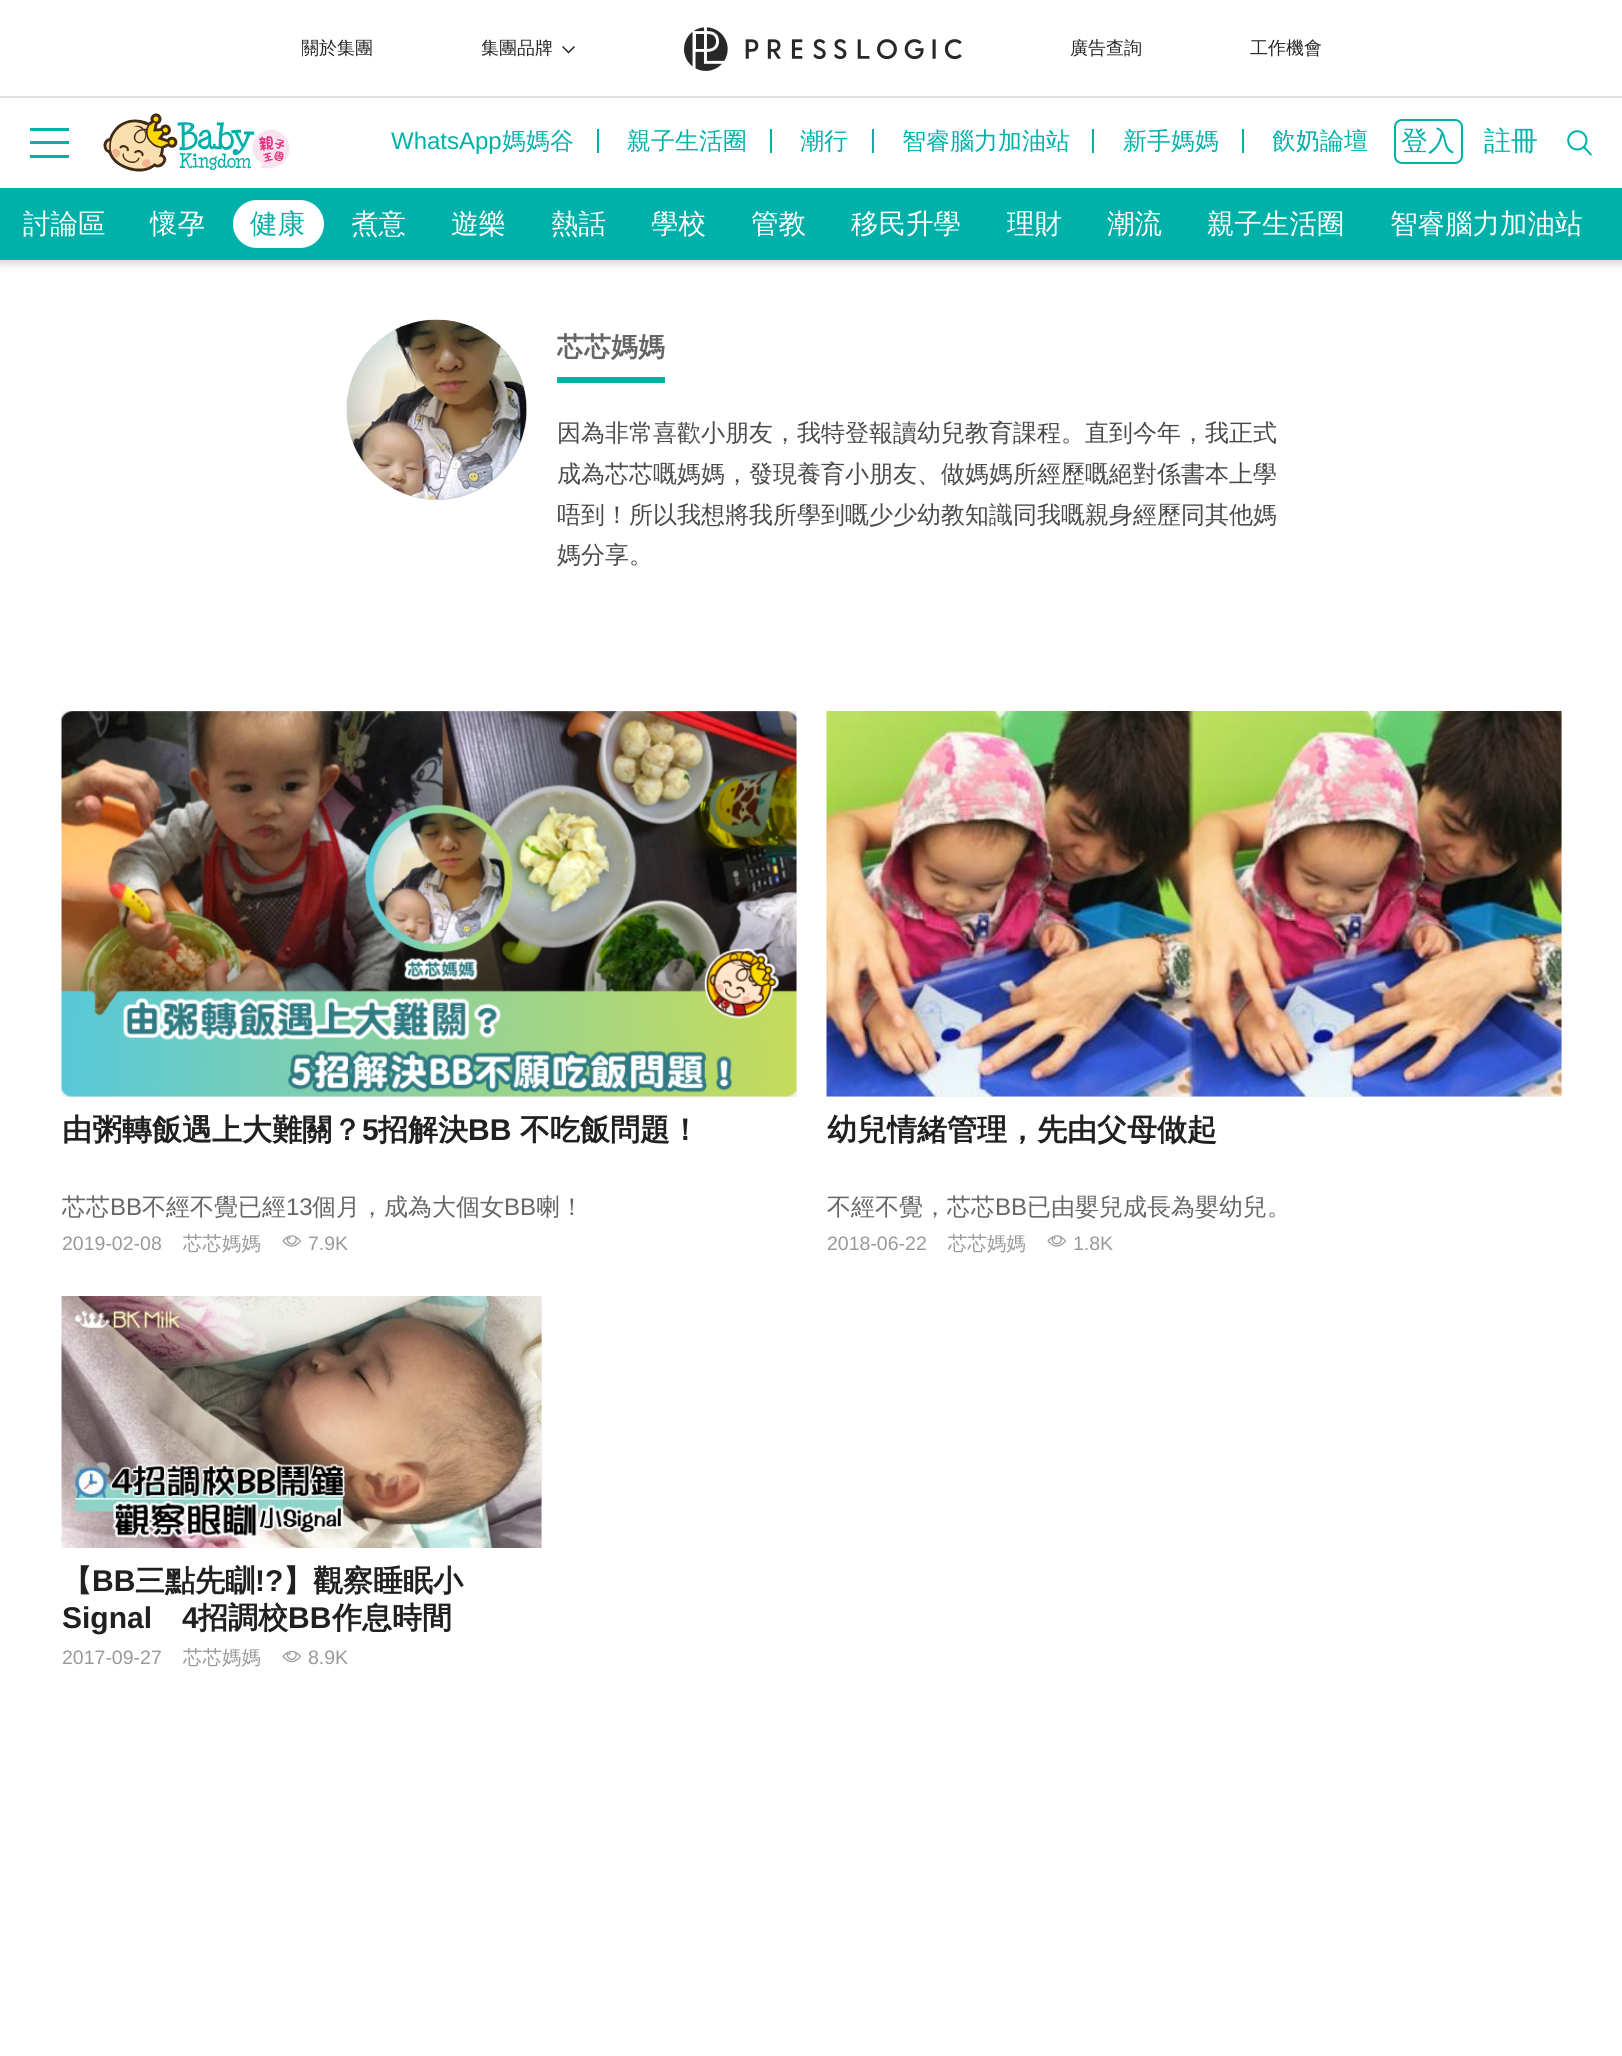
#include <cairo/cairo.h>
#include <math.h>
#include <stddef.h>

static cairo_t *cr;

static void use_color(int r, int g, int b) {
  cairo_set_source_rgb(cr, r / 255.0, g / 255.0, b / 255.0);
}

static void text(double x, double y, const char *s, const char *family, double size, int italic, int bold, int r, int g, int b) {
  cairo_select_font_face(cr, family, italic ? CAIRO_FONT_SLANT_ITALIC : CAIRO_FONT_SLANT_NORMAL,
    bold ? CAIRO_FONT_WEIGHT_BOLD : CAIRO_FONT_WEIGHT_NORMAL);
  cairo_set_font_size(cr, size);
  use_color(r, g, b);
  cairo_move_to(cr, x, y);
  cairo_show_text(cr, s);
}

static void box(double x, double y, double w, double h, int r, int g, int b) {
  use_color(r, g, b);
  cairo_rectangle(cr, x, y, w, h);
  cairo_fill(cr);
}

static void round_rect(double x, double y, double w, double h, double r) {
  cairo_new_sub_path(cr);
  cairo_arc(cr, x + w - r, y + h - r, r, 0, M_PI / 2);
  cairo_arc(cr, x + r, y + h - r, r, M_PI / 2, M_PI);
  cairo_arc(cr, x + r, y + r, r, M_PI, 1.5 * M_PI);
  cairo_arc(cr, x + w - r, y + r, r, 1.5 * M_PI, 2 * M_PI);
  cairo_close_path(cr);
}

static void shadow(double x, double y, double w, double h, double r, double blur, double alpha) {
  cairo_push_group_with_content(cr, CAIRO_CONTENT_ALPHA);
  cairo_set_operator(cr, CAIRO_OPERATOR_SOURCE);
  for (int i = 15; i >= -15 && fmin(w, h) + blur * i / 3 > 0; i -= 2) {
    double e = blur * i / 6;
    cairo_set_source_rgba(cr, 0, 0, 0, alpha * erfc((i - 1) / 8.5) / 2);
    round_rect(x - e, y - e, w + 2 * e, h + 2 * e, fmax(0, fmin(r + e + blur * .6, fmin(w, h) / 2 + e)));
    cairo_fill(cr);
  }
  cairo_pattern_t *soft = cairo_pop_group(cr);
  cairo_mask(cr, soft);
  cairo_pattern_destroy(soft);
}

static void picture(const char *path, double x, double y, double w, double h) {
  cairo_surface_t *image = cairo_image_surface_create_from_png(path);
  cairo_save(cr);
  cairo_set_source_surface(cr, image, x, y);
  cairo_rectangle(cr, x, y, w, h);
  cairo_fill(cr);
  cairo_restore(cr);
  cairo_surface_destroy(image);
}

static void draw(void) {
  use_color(255, 255, 255);
  cairo_paint(cr);
  use_color(0, 0, 0);
  shadow(-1, -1, 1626, 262, 0, 6, 0.25);
  box(0, 0, 1622, 96, 255, 255, 255);
  box(0, 96, 1622, 2, 224, 224, 224);
  cairo_new_path(cr);
  cairo_move_to(cr, 574.5, 46.5);
  cairo_line_to(cr, 568.5, 52.5);
  cairo_line_to(cr, 562.5, 46.5);
  use_color(40, 40, 40);
  cairo_set_line_width(cr, 1.5);
  cairo_stroke(cr);
  picture("img_01.png", 684, 27, 278, 44);
  box(0, 98, 1622, 90, 255, 255, 255);
  box(30, 128, 39, 3, 0, 177, 170);
  box(30, 141, 39, 3, 0, 177, 170);
  box(30, 155, 39, 3, 0, 177, 170);
  picture("img_02.png", 103, 113, 187, 59);
  box(597, 129, 2, 24, 0, 177, 170);
  box(770, 129, 2, 24, 0, 177, 170);
  box(872, 129, 2, 24, 0, 177, 170);
  box(1092, 129, 2, 24, 0, 177, 170);
  box(1242, 129, 2, 24, 0, 177, 170);
  round_rect(1395, 120, 67, 43, 7);
  cairo_set_line_width(cr, 2);
  cairo_stroke(cr);
  picture("img_03.png", 1567, 130, 25, 26);
  box(0, 188, 1622, 72, 0, 177, 170);
  use_color(255, 255, 255);
  round_rect(233, 200, 91, 48, 24);
  cairo_fill(cr);
  use_color(204, 204, 204);
  cairo_arc(cr, 437, 410, 90, 0, 2 * M_PI);
  cairo_fill(cr);
  picture("img_04.png", 346, 319, 181, 181);
  box(557, 377, 108, 6, 6, 176, 163);
  box(62, 711, 735, 386, 241, 241, 241);
  picture("img_05.png", 61, 711, 736, 386);
  picture("img_06.png", 282, 1235, 19, 12);
  box(827, 711, 735, 386, 241, 241, 241);
  picture("img_07.png", 826, 711, 736, 386);
  picture("img_06.png", 1047, 1235, 19, 12);
  box(541, 1296, 1, 252, 241, 241, 241);
  picture("img_08.png", 61, 1296, 481, 252);
  picture("img_09.png", 282, 1650, 19, 13);
  cairo_save(cr);
  cairo_rectangle(cr, 302, 18, 72, 60);
  cairo_clip(cr);
  text(301, 54, "關於集團", "WenQuanYi Zen Hei Medium", 18, 0, 0, 40, 40, 40);
  cairo_restore(cr);
  cairo_save(cr);
  cairo_rectangle(cr, 482, 18, 94, 60);
  cairo_clip(cr);
  text(481, 54, "集團品牌", "WenQuanYi Zen Hei Medium", 18, 0, 0, 40, 40, 40);
  cairo_restore(cr);
  text(1070, 54, "廣告查詢", "WenQuanYi Zen Hei Medium", 18, 0, 0, 40, 40, 40);
  text(1250, 54, "工作機會", "WenQuanYi Zen Hei Medium", 18, 0, 0, 40, 40, 40);
  text(391, 149, "WhatsApp", "Liberation Sans", 24, 0, 0, 0, 177, 170);
  text(502, 149, "媽媽谷", "WenQuanYi Zen Hei Medium", 24, 0, 0, 0, 177, 170);
  text(627, 149, "親子生活圈", "WenQuanYi Zen Hei Medium", 24, 0, 0, 0, 177, 170);
  text(800, 149, "潮行", "WenQuanYi Zen Hei Medium", 24, 0, 0, 0, 177, 170);
  text(902, 149, "智睿腦力加油站", "WenQuanYi Zen Hei Medium", 24, 0, 0, 0, 177, 170);
  text(1123, 149, "新手媽媽", "WenQuanYi Zen Hei Medium", 24, 0, 0, 0, 177, 170);
  text(1272, 149, "飲奶論壇", "WenQuanYi Zen Hei Medium", 24, 0, 0, 0, 177, 170);
  text(1401, 150, "登入", "WenQuanYi Zen Hei Medium", 27, 0, 0, 0, 177, 170);
  text(1484, 150, "註冊", "WenQuanYi Zen Hei Medium", 27, 0, 0, 0, 177, 170);
  text(23, 233, "討論區", "WenQuanYi Zen Hei Medium", 27.5, 0, 0, 255, 255, 255);
  text(150, 233, "懷孕", "WenQuanYi Zen Hei Medium", 27.5, 0, 0, 255, 255, 255);
  text(250, 233, "健康", "WenQuanYi Zen Hei Medium", 27.5, 0, 0, 0, 177, 170);
  text(351, 233, "煮意", "WenQuanYi Zen Hei Medium", 27.5, 0, 0, 255, 255, 255);
  text(451, 233, "遊樂", "WenQuanYi Zen Hei Medium", 27.5, 0, 0, 255, 255, 255);
  text(551, 233, "熱話", "WenQuanYi Zen Hei Medium", 27.5, 0, 0, 255, 255, 255);
  text(651, 233, "學校", "WenQuanYi Zen Hei Medium", 27.5, 0, 0, 255, 255, 255);
  text(751, 233, "管教", "WenQuanYi Zen Hei Medium", 27.5, 0, 0, 255, 255, 255);
  text(851, 233, "移民升學", "WenQuanYi Zen Hei Medium", 27.5, 0, 0, 255, 255, 255);
  text(1007, 233, "理財", "WenQuanYi Zen Hei Medium", 27.5, 0, 0, 255, 255, 255);
  text(1107, 233, "潮流", "WenQuanYi Zen Hei Medium", 27.5, 0, 0, 255, 255, 255);
  text(1207, 233, "親子生活圈", "WenQuanYi Zen Hei Medium", 27.5, 0, 0, 255, 255, 255);
  text(1390, 233, "智睿腦力加油站", "WenQuanYi Zen Hei Medium", 27.5, 0, 0, 255, 255, 255);
  text(557, 356, "芯芯媽媽", "WenQuanYi Zen Hei", 27, 0, 1, 102, 102, 102);
  text(557, 441, "因為非常喜歡小朋友，我特登報讀幼兒教育課程。直到今年，我正式", "WenQuanYi Zen Hei Medium", 24, 0, 0, 74, 74, 74);
  text(557, 482, "成為芯芯嘅媽媽，發現養育小朋友、做媽媽所經歷嘅絕對係書本上學", "WenQuanYi Zen Hei Medium", 24, 0, 0, 74, 74, 74);
  text(557, 523, "唔到！所以我想將我所學到嘅少少幼教知識同我嘅親身經歷同其他媽", "WenQuanYi Zen Hei Medium", 24, 0, 0, 74, 74, 74);
  text(557, 563, "媽分享。", "WenQuanYi Zen Hei Medium", 24, 0, 0, 74, 74, 74);
  text(62, 1140, "由粥轉飯遇上大難關？", "WenQuanYi Zen Hei", 30, 0, 1, 32, 32, 32);
  text(362, 1140, "5", "Liberation Sans", 30, 0, 1, 32, 32, 32);
  text(378, 1140, "招解決", "WenQuanYi Zen Hei", 30, 0, 1, 32, 32, 32);
  text(468, 1140, "BB", "Liberation Sans", 30, 0, 1, 32, 32, 32);
  text(520, 1140, "不吃飯問題！", "WenQuanYi Zen Hei", 30, 0, 1, 32, 32, 32);
  text(62, 1215, "芯芯", "WenQuanYi Zen Hei Medium", 24, 0, 0, 102, 102, 102);
  text(110, 1215, "BB", "Liberation Sans", 24, 0, 0, 102, 102, 102);
  text(142, 1215, "不經不覺已經", "WenQuanYi Zen Hei Medium", 24, 0, 0, 102, 102, 102);
  text(286, 1215, "13", "Liberation Sans", 24, 0, 0, 102, 102, 102);
  text(312, 1215, "個月，成為大個女", "WenQuanYi Zen Hei Medium", 24, 0, 0, 102, 102, 102);
  text(504, 1215, "BB", "Liberation Sans", 24, 0, 0, 102, 102, 102);
  text(536, 1215, "喇！", "WenQuanYi Zen Hei Medium", 24, 0, 0, 102, 102, 102);
  text(62, 1250, "2019-02-08", "Liberation Sans", 19.5, 0, 0, 153, 153, 153);
  text(183, 1250, "芯芯媽媽", "WenQuanYi Zen Hei Medium", 19.5, 0, 0, 153, 153, 153);
  text(308, 1250, "7.9K", "Liberation Sans", 19.5, 0, 0, 153, 153, 153);
  text(827, 1140, "幼兒情緒管理，先由父母做起", "WenQuanYi Zen Hei", 30, 0, 1, 32, 32, 32);
  text(827, 1215, "不經不覺，芯芯", "WenQuanYi Zen Hei Medium", 24, 0, 0, 102, 102, 102);
  text(995, 1215, "BB", "Liberation Sans", 24, 0, 0, 102, 102, 102);
  text(1027, 1215, "已由嬰兒成長為嬰幼兒。", "WenQuanYi Zen Hei Medium", 24, 0, 0, 102, 102, 102);
  text(827, 1250, "2018-06-22", "Liberation Sans", 19.5, 0, 0, 153, 153, 153);
  text(948, 1250, "芯芯媽媽", "WenQuanYi Zen Hei Medium", 19.5, 0, 0, 153, 153, 153);
  text(1073, 1250, "1.8K", "Liberation Sans", 19.5, 0, 0, 153, 153, 153);
  text(62, 1591, "【", "WenQuanYi Zen Hei", 30, 0, 1, 32, 32, 32);
  text(92, 1591, "BB", "Liberation Sans", 30, 0, 1, 32, 32, 32);
  text(135, 1591, "三點先瞓", "WenQuanYi Zen Hei", 30, 0, 1, 32, 32, 32);
  text(255, 1591, "!?", "Liberation Sans", 30, 0, 1, 32, 32, 32);
  text(283, 1591, "】觀察睡眠小", "WenQuanYi Zen Hei", 30, 0, 1, 32, 32, 32);
  text(62, 1628, "Signal", "Liberation Sans", 30, 0, 1, 32, 32, 32);
  text(182, 1628, "4", "Liberation Sans", 30, 0, 1, 32, 32, 32);
  text(198, 1628, "招調校", "WenQuanYi Zen Hei", 30, 0, 1, 32, 32, 32);
  text(288, 1628, "BB", "Liberation Sans", 30, 0, 1, 32, 32, 32);
  text(332, 1628, "作息時間", "WenQuanYi Zen Hei", 30, 0, 1, 32, 32, 32);
  text(62, 1664, "2017-09-27", "Liberation Sans", 19.5, 0, 0, 153, 153, 153);
  text(183, 1664, "芯芯媽媽", "WenQuanYi Zen Hei Medium", 19.5, 0, 0, 153, 153, 153);
  text(308, 1664, "8.9K", "Liberation Sans", 19.5, 0, 0, 153, 153, 153);
}

int main(void) {
  cairo_surface_t *surface = cairo_image_surface_create(CAIRO_FORMAT_RGB24, 1622, 2056);
  cr = cairo_create(surface);
  cairo_font_options_t *options = cairo_font_options_create();
  cairo_font_options_set_hint_metrics(options, CAIRO_HINT_METRICS_OFF);
  cairo_font_options_set_hint_style(options, CAIRO_HINT_STYLE_NONE);
  cairo_set_font_options(cr, options);
  cairo_set_miter_limit(cr, 4);
  draw();
  cairo_surface_write_to_png(surface, "out.png");
  cairo_font_options_destroy(options);
  cairo_destroy(cr);
  cairo_surface_destroy(surface);
  return 0;
}
